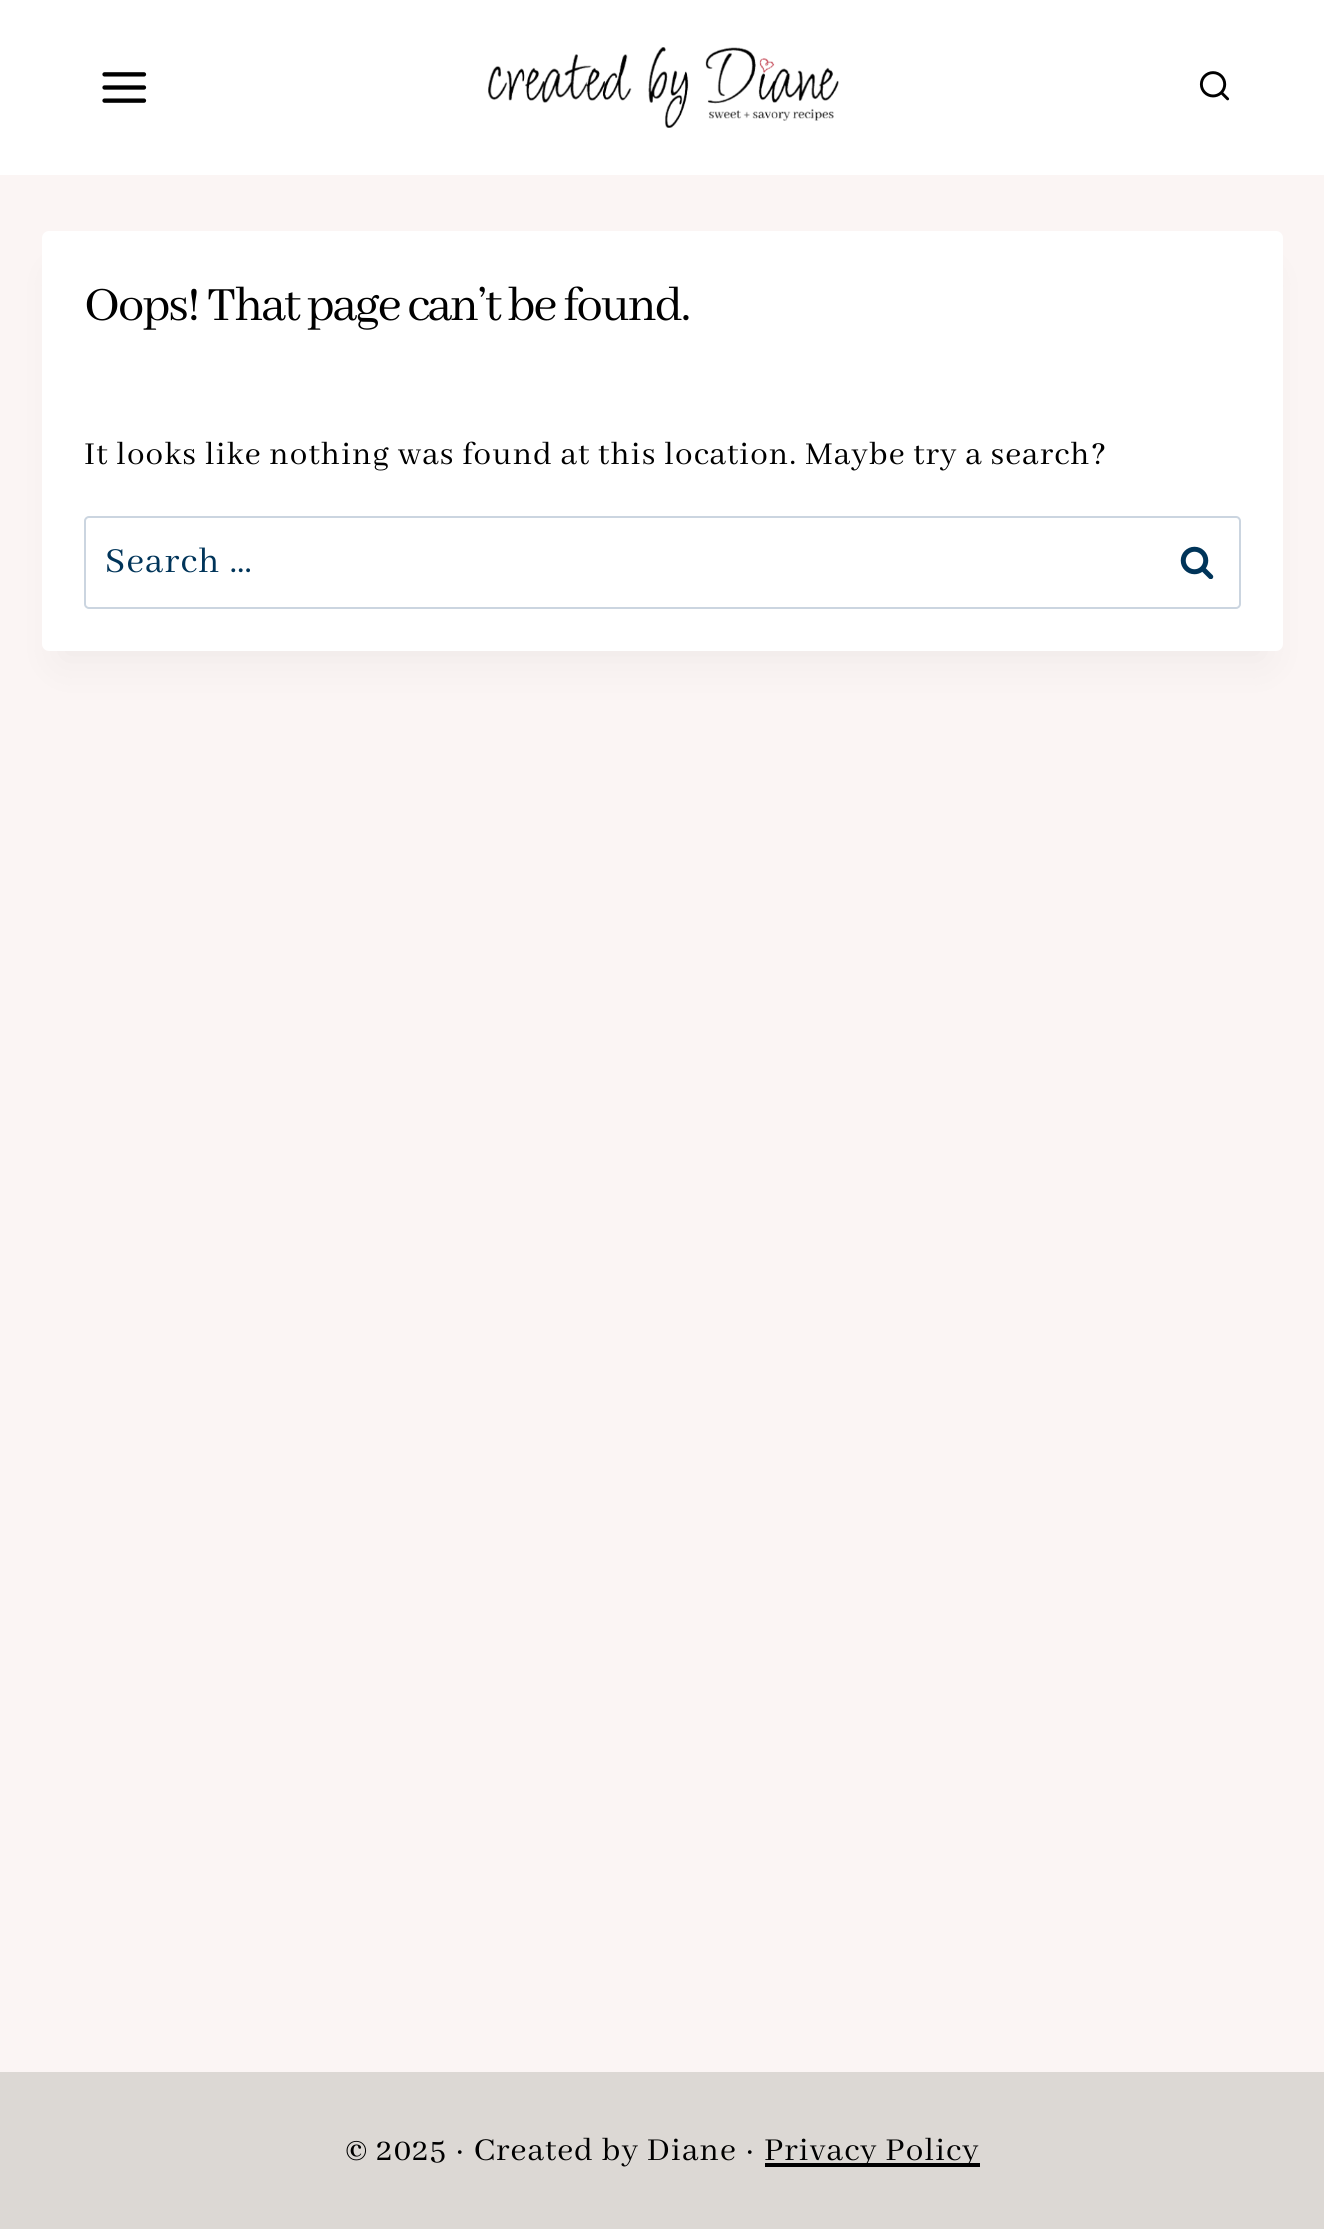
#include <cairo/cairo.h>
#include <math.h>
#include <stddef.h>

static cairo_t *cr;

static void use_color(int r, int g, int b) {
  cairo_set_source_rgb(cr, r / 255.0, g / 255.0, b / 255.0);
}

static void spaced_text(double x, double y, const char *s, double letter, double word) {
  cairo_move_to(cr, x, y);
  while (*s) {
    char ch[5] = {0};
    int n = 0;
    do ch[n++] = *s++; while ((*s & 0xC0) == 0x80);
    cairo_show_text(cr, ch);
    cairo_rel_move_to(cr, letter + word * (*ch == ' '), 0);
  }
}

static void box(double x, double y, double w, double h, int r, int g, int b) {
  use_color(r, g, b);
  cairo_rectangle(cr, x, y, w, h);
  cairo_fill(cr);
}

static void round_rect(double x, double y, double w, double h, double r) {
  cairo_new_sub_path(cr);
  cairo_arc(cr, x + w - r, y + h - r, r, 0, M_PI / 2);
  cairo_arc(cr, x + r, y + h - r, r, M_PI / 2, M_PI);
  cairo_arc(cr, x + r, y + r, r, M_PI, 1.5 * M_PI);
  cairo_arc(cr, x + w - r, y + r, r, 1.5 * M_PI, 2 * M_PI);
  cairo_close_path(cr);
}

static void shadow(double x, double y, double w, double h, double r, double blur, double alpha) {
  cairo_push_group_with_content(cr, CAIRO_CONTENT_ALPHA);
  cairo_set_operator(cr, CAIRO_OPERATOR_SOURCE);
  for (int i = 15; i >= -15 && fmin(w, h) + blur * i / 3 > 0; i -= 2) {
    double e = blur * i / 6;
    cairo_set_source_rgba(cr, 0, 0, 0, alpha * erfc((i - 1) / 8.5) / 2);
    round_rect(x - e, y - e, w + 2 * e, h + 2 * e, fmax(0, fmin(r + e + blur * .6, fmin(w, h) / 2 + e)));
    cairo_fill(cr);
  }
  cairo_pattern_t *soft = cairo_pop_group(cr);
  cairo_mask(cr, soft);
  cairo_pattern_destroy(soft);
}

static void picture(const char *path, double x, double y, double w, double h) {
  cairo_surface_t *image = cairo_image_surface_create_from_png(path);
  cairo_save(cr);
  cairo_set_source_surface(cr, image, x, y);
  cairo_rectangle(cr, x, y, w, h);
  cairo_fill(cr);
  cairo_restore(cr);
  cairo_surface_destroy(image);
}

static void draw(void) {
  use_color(251, 245, 244);
  cairo_paint(cr);
  box(0, 0, 1324, 175, 255, 255, 255);
  picture("img_01.png", 102, 72, 45, 31);
  picture("img_02.png", 488, 47, 351, 81);
  picture("img_03.png", 1199, 71, 31, 30);
  use_color(0, 0, 0);
  shadow(60, 275, 1205, 385, 0, 22, 0.05);
  use_color(255, 255, 255);
  round_rect(42, 231, 1241, 420, 7);
  cairo_fill(cr);
  round_rect(85, 517, 1155, 91, 4);
  use_color(203, 213, 224);
  cairo_stroke(cr);
  picture("img_04.png", 1180, 546, 34, 33);
  box(0, 2072, 1324, 157, 220, 216, 212);
  box(765, 2163, 215, 4, 0, 0, 0);
  cairo_select_font_face(cr, "Abhaya Libre", CAIRO_FONT_SLANT_NORMAL, CAIRO_FONT_WEIGHT_NORMAL);
  cairo_set_font_size(cr, 52.5);
  spaced_text(84, 320, "Oops! That page can’t be found.", -2.1, 0);
  cairo_set_font_size(cr, 35);
  spaced_text(84, 464, "It looks like nothing was found at this location. Maybe try a search?", 1.05, 0);
  cairo_set_font_size(cr, 38.5);
  use_color(0, 52, 89);
  spaced_text(105, 572, "Search …", 1.25, 0);
  cairo_set_font_size(cr, 35);
  use_color(0, 0, 0);
  spaced_text(345, 2160, "© 2025 · Created by Diane ·", 1.05, 0);
  spaced_text(764, 2160, "Privacy Policy", 1.05, 0);
}

int main(void) {
  cairo_surface_t *surface = cairo_image_surface_create(CAIRO_FORMAT_RGB24, 1324, 2229);
  cr = cairo_create(surface);
  cairo_font_options_t *options = cairo_font_options_create();
  cairo_font_options_set_hint_metrics(options, CAIRO_HINT_METRICS_OFF);
  cairo_font_options_set_hint_style(options, CAIRO_HINT_STYLE_NONE);
  cairo_set_font_options(cr, options);
  cairo_set_miter_limit(cr, 4);
  draw();
  cairo_surface_write_to_png(surface, "out.png");
  cairo_font_options_destroy(options);
  cairo_destroy(cr);
  cairo_surface_destroy(surface);
  return 0;
}
